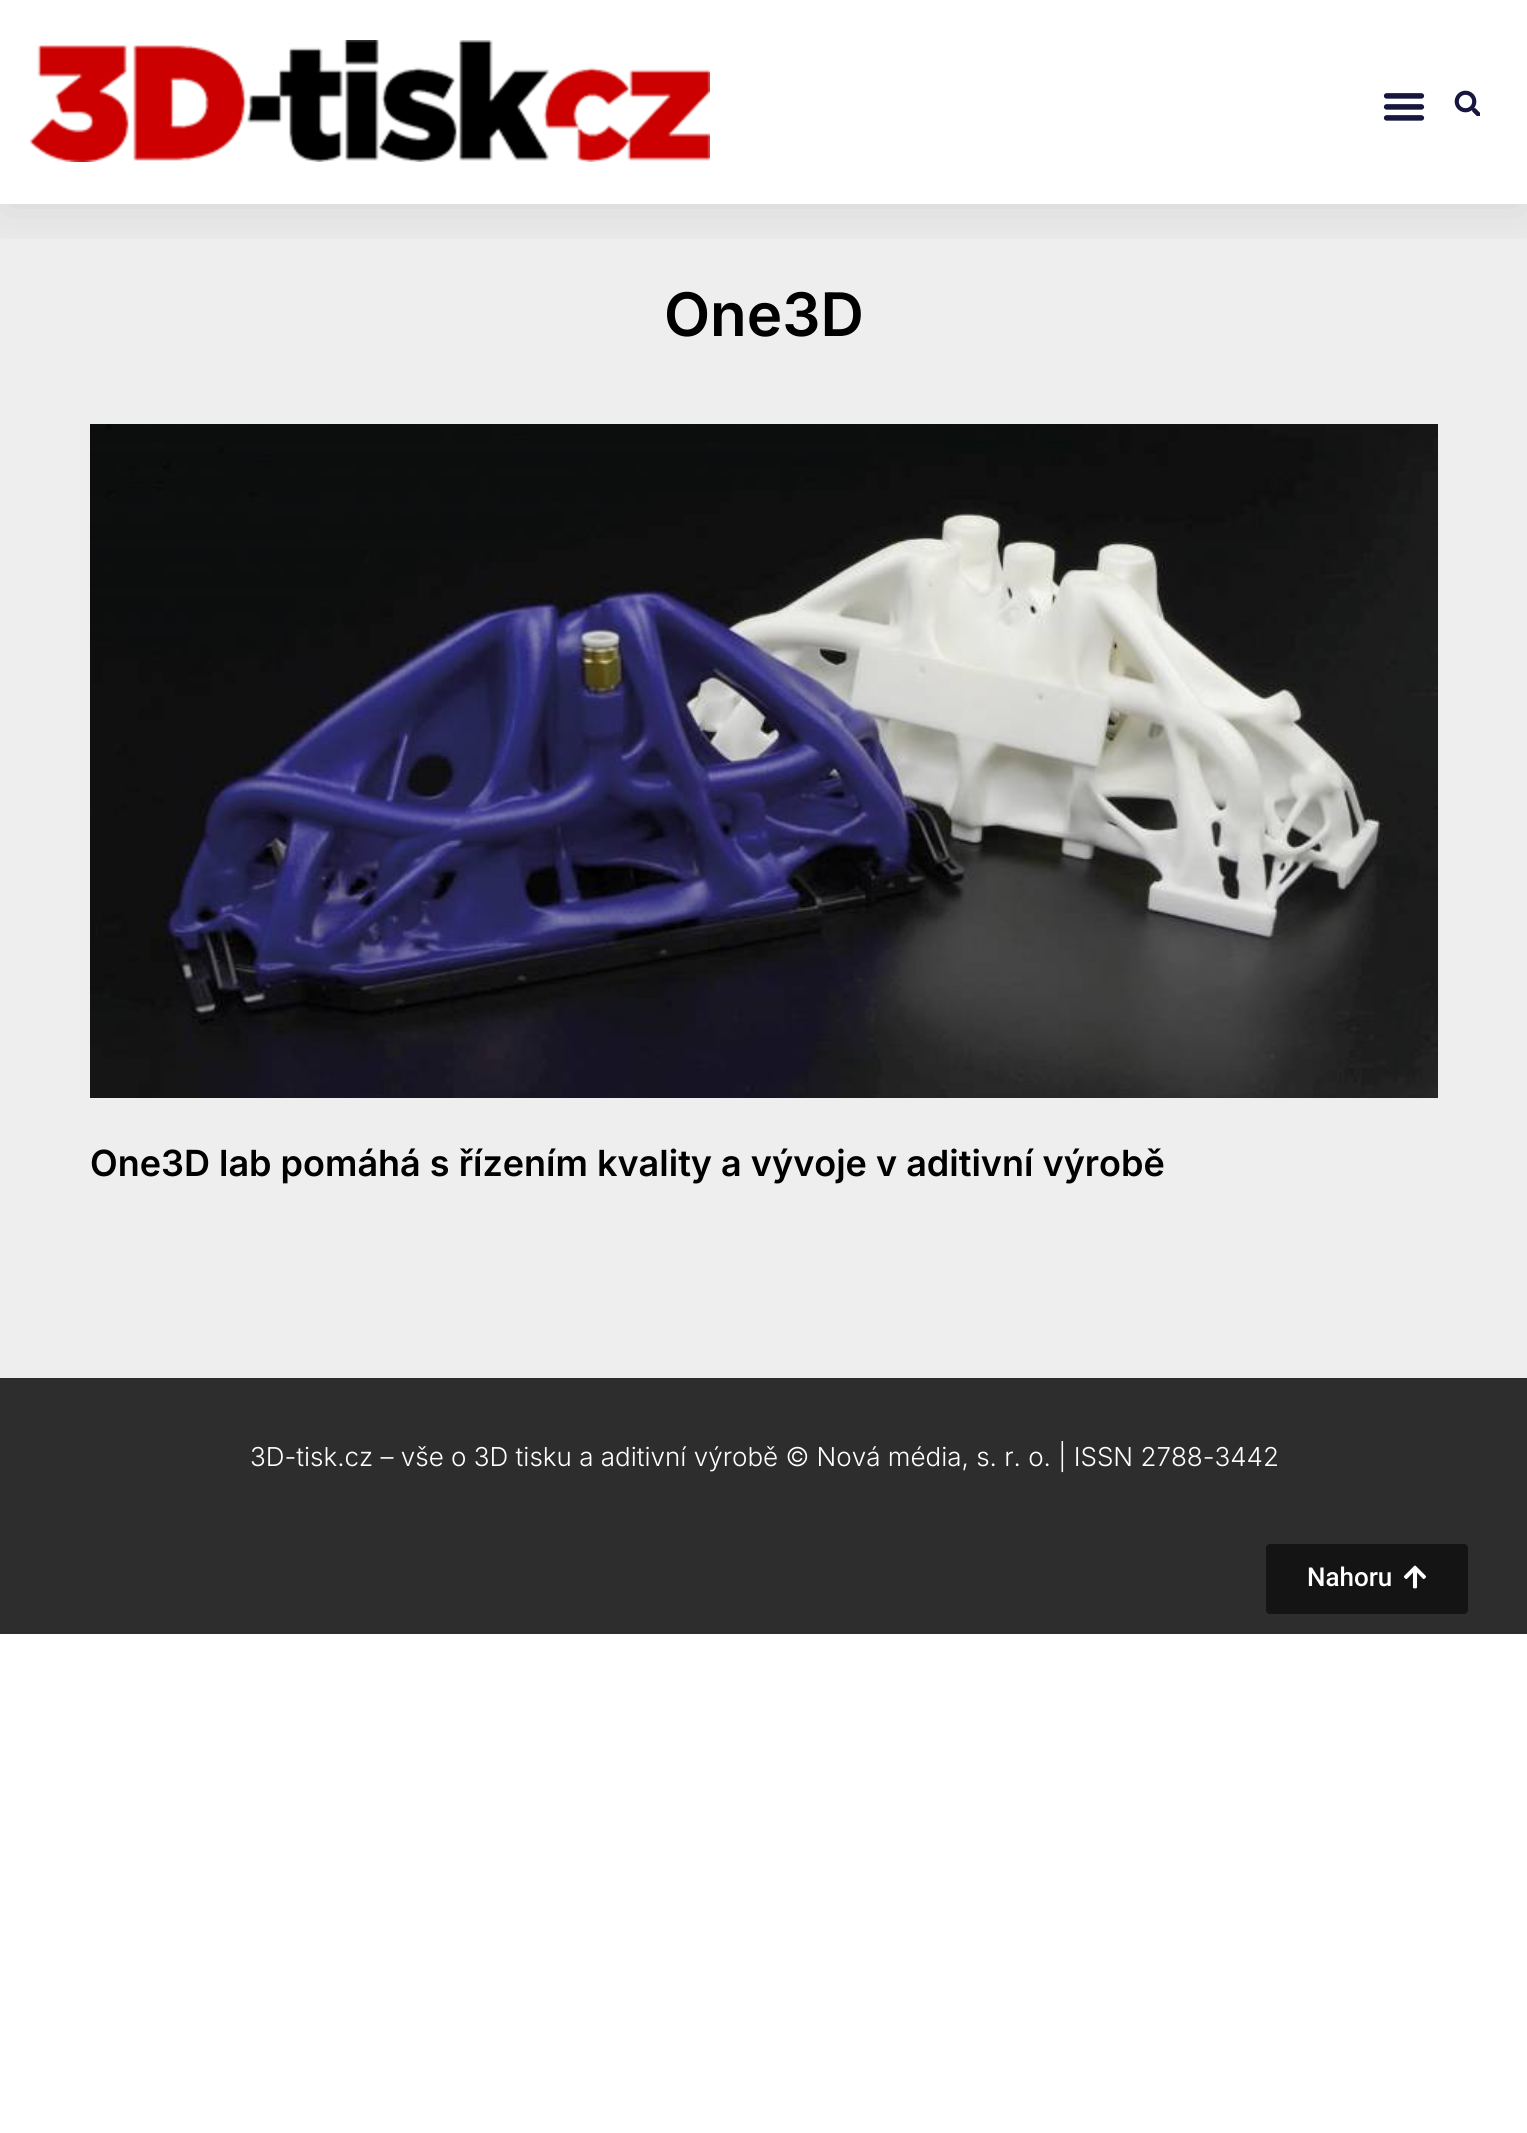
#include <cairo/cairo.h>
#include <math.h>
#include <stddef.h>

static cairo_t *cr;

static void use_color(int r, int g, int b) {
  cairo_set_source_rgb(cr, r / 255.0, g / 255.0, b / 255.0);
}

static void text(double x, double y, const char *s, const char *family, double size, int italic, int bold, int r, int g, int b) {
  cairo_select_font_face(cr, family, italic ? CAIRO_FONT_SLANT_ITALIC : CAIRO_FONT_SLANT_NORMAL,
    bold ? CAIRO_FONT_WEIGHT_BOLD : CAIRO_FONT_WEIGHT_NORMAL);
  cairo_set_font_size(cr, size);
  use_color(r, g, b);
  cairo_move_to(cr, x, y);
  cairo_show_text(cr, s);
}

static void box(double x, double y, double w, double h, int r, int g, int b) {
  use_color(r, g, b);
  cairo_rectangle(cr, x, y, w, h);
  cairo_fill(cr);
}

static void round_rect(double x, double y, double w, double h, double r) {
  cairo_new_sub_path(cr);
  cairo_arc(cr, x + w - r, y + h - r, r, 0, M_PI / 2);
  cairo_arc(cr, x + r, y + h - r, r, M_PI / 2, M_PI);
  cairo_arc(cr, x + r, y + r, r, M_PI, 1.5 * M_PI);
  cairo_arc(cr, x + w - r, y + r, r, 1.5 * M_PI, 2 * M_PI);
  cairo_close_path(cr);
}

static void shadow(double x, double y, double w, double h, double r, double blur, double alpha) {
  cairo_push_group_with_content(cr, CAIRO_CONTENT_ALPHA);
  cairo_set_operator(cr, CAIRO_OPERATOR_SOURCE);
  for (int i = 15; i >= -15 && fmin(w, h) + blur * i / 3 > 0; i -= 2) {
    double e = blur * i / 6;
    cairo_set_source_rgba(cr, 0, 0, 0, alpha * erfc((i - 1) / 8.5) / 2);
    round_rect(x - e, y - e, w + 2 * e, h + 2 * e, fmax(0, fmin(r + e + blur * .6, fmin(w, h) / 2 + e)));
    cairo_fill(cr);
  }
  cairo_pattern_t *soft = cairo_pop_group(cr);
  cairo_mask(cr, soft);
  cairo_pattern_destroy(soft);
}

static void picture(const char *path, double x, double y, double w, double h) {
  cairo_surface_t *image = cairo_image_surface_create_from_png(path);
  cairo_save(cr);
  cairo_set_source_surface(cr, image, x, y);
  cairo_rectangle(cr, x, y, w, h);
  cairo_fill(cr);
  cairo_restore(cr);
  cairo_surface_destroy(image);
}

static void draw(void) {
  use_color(255, 255, 255);
  cairo_paint(cr);
  box(0, 204, 1527, 1174, 238, 238, 238);
  cairo_save(cr);
  cairo_rectangle(cr, 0, 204, 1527, 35);
  cairo_clip(cr);
  use_color(0, 0, 0);
  shadow(0, 10, 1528, 204, 0, 30, 0.1);
  cairo_restore(cr);
  picture("img_01.png", 30, 40, 680, 122);
  picture("img_02.png", 1383, 93, 42, 28);
  picture("img_03.png", 1454, 90, 26, 26);
  picture("img_04.png", 90, 424, 1348, 674);
  box(0, 1378, 1527, 256, 45, 45, 45);
  use_color(20, 20, 20);
  round_rect(1266, 1544, 202, 70, 4);
  cairo_fill(cr);
  picture("img_05.png", 1403, 1565, 24, 24);
  text(664, 336, "One3D", "Inter SemiBold", 60, 0, 0, 0, 0, 0);
  text(90, 1176, "One3D lab pomáhá s řízením kvality a vývoje v aditivní výrobě", "Inter SemiBold", 36, 0, 0, 0, 0, 0);
  text(250, 1466, "3D-tisk.cz – vše o 3D tisku a aditivní výrobě © Nová média, s. r. o. | ISSN 2788-3442", "Inter Light", 26, 0, 0, 255, 255, 255);
  text(1307, 1586, "Nahoru", "Roboto Medium", 26, 0, 0, 255, 255, 255);
}

int main(void) {
  cairo_surface_t *surface = cairo_image_surface_create(CAIRO_FORMAT_RGB24, 1527, 2133);
  cr = cairo_create(surface);
  cairo_font_options_t *options = cairo_font_options_create();
  cairo_font_options_set_hint_metrics(options, CAIRO_HINT_METRICS_OFF);
  cairo_font_options_set_hint_style(options, CAIRO_HINT_STYLE_NONE);
  cairo_set_font_options(cr, options);
  cairo_set_miter_limit(cr, 4);
  draw();
  cairo_surface_write_to_png(surface, "out.png");
  cairo_font_options_destroy(options);
  cairo_destroy(cr);
  cairo_surface_destroy(surface);
  return 0;
}
